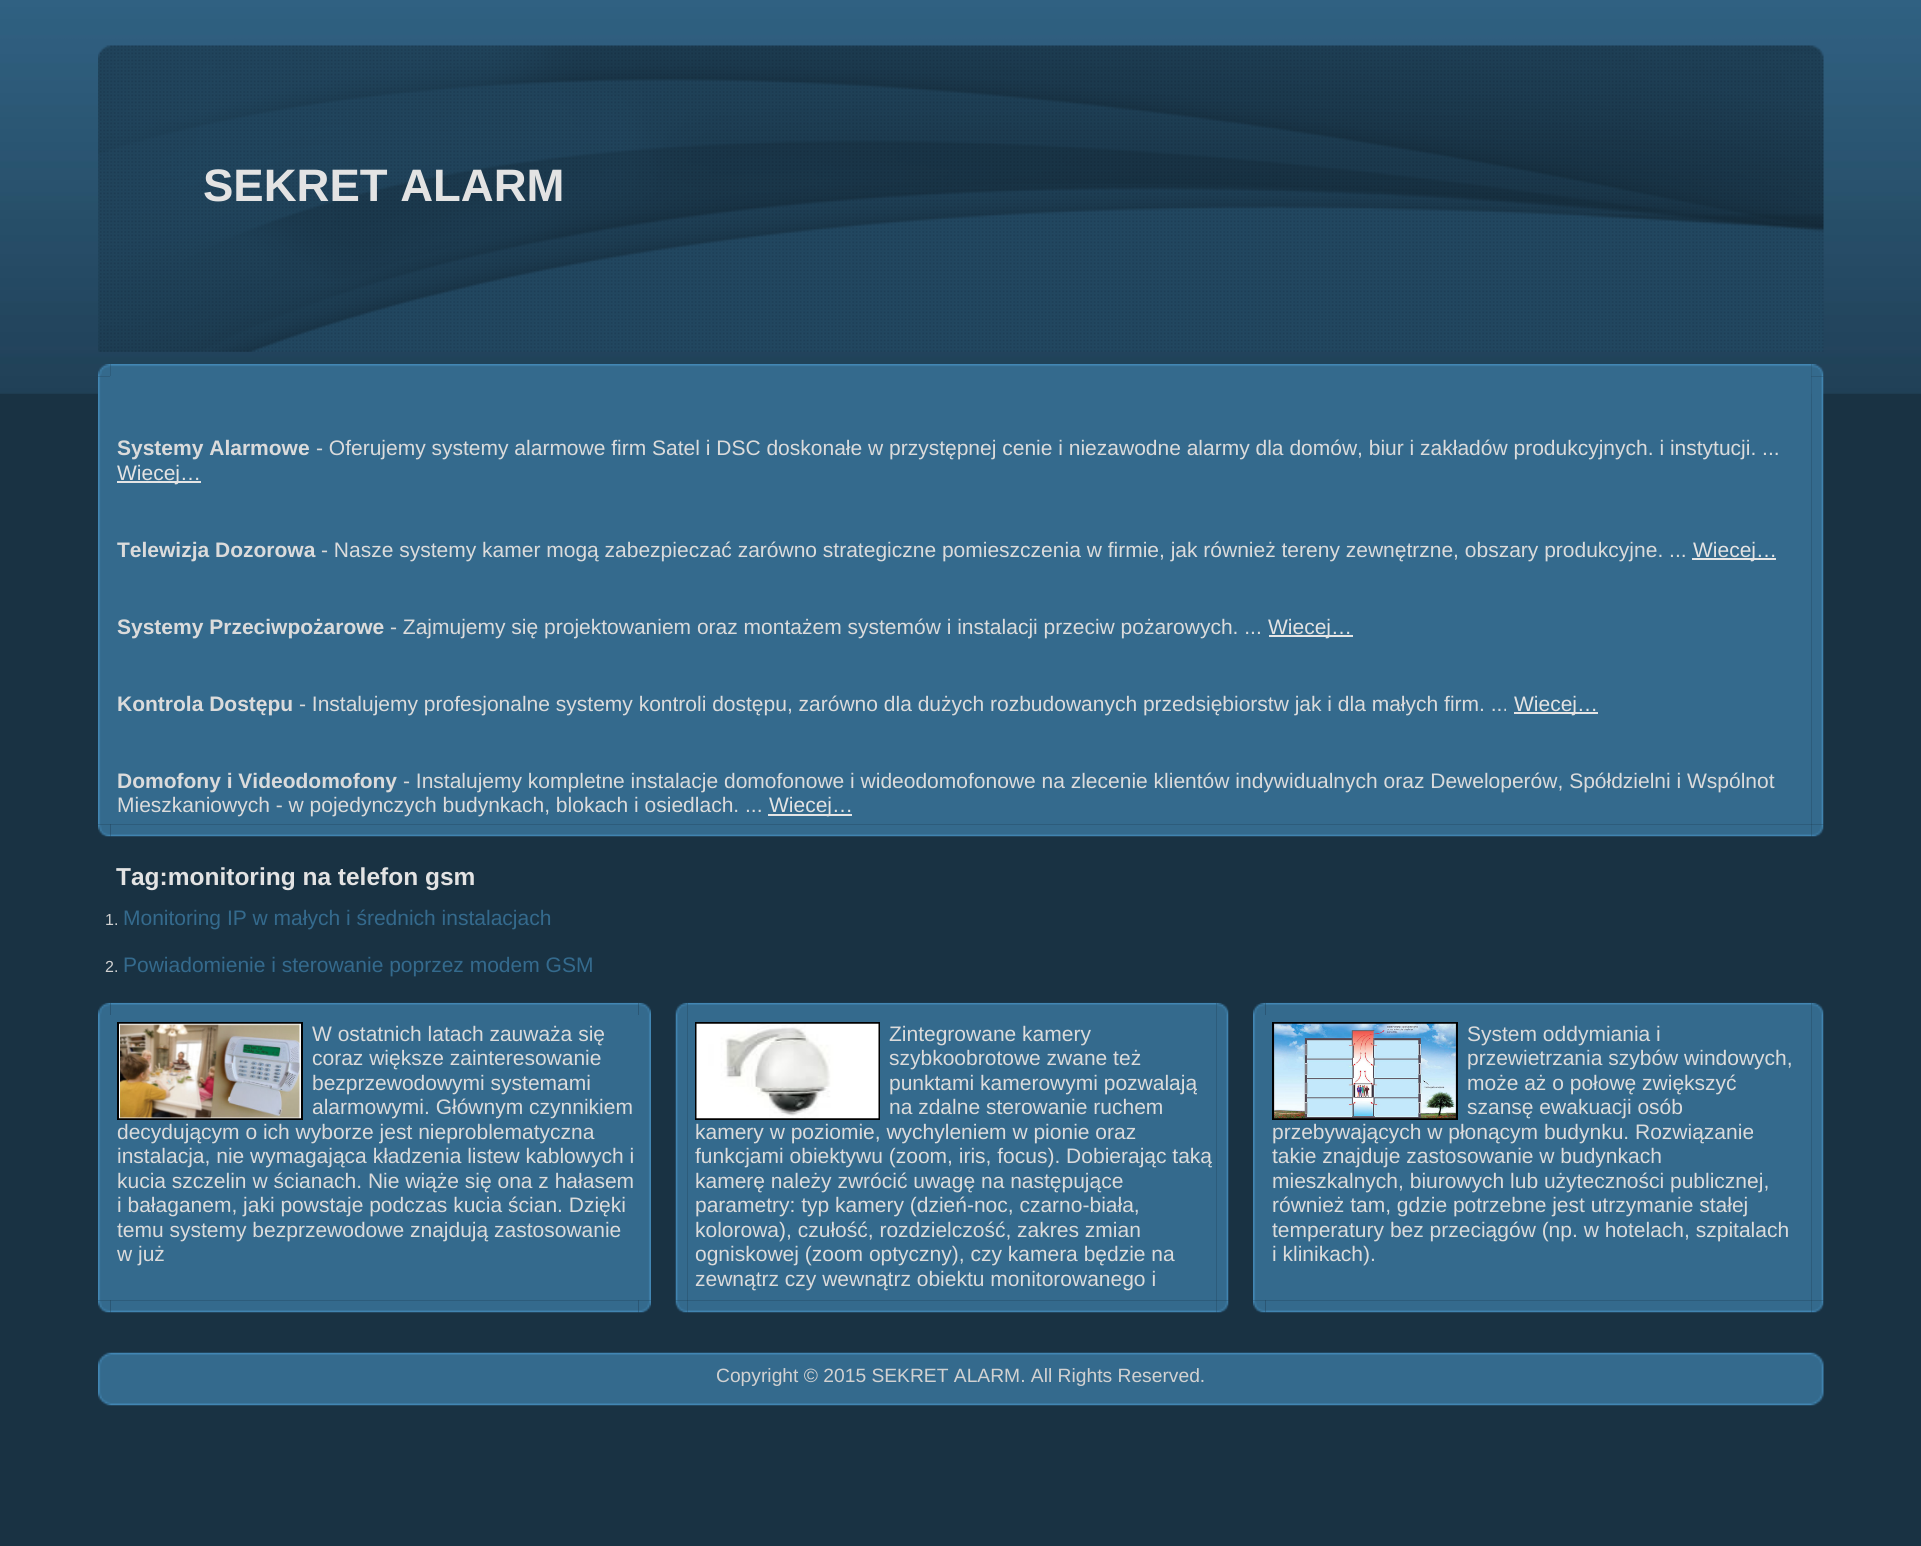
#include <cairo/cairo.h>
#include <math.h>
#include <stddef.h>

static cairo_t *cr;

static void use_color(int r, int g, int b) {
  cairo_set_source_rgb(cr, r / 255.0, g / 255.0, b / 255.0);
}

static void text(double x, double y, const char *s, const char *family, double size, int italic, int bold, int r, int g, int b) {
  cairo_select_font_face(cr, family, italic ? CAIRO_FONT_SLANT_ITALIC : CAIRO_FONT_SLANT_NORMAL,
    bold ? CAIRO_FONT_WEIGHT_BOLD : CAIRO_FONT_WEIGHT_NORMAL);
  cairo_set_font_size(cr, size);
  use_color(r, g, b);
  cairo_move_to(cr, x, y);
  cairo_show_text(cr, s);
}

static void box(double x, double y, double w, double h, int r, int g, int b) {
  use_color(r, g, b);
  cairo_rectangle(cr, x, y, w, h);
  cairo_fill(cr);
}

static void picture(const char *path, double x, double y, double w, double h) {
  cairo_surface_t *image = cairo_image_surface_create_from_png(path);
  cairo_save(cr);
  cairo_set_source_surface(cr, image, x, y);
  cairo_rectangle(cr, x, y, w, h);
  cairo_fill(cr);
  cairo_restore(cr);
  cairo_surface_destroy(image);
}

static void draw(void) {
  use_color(25, 50, 67);
  cairo_paint(cr);
  picture("img_01.png", 0, 0, 1921, 394);
  picture("img_02.png", 98, 45, 1726, 307);
  picture("img_03.png", 98, 364, 13, 13);
  picture("img_04.png", 110, 364, 1701, 12);
  picture("img_05.png", 1811, 364, 13, 13);
  picture("img_06.png", 98, 376, 12, 448);
  box(110, 376, 1701, 448, 52, 106, 141);
  picture("img_07.png", 1811, 376, 13, 448);
  box(117, 481, 84, 2, 229, 229, 229);
  box(1692, 558, 84, 2, 229, 229, 229);
  box(1269, 635, 84, 2, 229, 229, 229);
  box(1514, 712, 84, 2, 229, 229, 229);
  box(768, 814, 84, 2, 229, 229, 229);
  picture("img_08.png", 98, 824, 13, 13);
  picture("img_09.png", 110, 824, 1701, 13);
  picture("img_10.png", 1811, 824, 13, 13);
  picture("img_11.png", 98, 1002, 13, 13);
  picture("img_13.png", 638, 1002, 13, 13);
  picture("img_12.png", 110, 1002, 529, 13);
  picture("img_14.png", 98, 1015, 12, 285);
  box(110, 1015, 529, 285, 52, 106, 141);
  picture("img_15.png", 639, 1015, 12, 285);
  cairo_rectangle(cr, 118, 1023, 184, 96);
  use_color(0, 0, 0);
  cairo_stroke(cr);
  picture("img_16.png", 119, 1023, 182, 96);
  picture("img_08.png", 98, 1300, 13, 13);
  picture("img_18.png", 638, 1300, 13, 13);
  picture("img_17.png", 110, 1300, 529, 13);
  picture("img_19.png", 675, 1002, 13, 13);
  picture("img_20.png", 688, 1002, 528, 13);
  picture("img_21.png", 1216, 1002, 13, 13);
  picture("img_22.png", 675, 1015, 13, 285);
  box(688, 1015, 528, 285, 52, 106, 141);
  picture("img_23.png", 1216, 1015, 13, 285);
  cairo_rectangle(cr, 696, 1023, 183, 96);
  use_color(0, 0, 0);
  cairo_stroke(cr);
  picture("img_24.png", 696, 1023, 183, 96);
  picture("img_25.png", 675, 1300, 13, 13);
  picture("img_26.png", 688, 1300, 528, 13);
  picture("img_10.png", 1216, 1300, 13, 13);
  picture("img_27.png", 1253, 1002, 13, 13);
  picture("img_28.png", 1265, 1002, 546, 13);
  picture("img_21.png", 1811, 1002, 13, 13);
  picture("img_14.png", 1253, 1015, 12, 285);
  box(1265, 1015, 546, 285, 52, 106, 141);
  picture("img_23.png", 1811, 1015, 13, 285);
  cairo_rectangle(cr, 1273, 1023, 184, 96);
  use_color(0, 0, 0);
  cairo_stroke(cr);
  picture("img_29.png", 1274, 1023, 182, 96);
  picture("img_30.png", 1253, 1300, 13, 13);
  picture("img_31.png", 1265, 1300, 546, 13);
  picture("img_10.png", 1811, 1300, 13, 13);
  picture("img_32.png", 98, 1352, 1726, 54);
  text(203, 201, "SEKRET ALARM", "Liberation Sans", 45.5, 0, 1, 227, 227, 227);
  text(117, 455, "Systemy Alarmowe", "Liberation Sans", 21, 0, 1, 219, 219, 219);
  text(316, 455, "- Oferujemy systemy alarmowe firm Satel i DSC doskonałe w przystępnej cenie i niezawodne alarmy dla domów, biur i zakładów produkcyjnych. i instytucji. ...", "Liberation Sans", 21, 0, 0, 219, 219, 219);
  text(117, 480, "Wiecej…", "Liberation Sans", 21, 0, 0, 227, 227, 227);
  text(117, 557, "Telewizja Dozorowa", "Liberation Sans", 21, 0, 1, 219, 219, 219);
  text(321, 557, "- Nasze systemy kamer mogą zabezpieczać zarówno strategiczne pomieszczenia w firmie, jak również tereny zewnętrzne, obszary produkcyjne. ...", "Liberation Sans", 21, 0, 0, 219, 219, 219);
  text(1693, 557, "Wiecej…", "Liberation Sans", 21, 0, 0, 227, 227, 227);
  text(117, 634, "Systemy Przeciwpożarowe", "Liberation Sans", 21, 0, 1, 219, 219, 219);
  text(390, 634, "- Zajmujemy się projektowaniem oraz montażem systemów i instalacji przeciw pożarowych. ...", "Liberation Sans", 21, 0, 0, 219, 219, 219);
  text(1268, 634, "Wiecej…", "Liberation Sans", 21, 0, 0, 227, 227, 227);
  text(117, 711, "Kontrola Dostępu", "Liberation Sans", 21, 0, 1, 219, 219, 219);
  text(299, 711, "- Instalujemy profesjonalne systemy kontroli dostępu, zarówno dla dużych rozbudowanych przedsiębiorstw jak i dla małych firm. ...", "Liberation Sans", 21, 0, 0, 219, 219, 219);
  text(1514, 711, "Wiecej…", "Liberation Sans", 21, 0, 0, 227, 227, 227);
  text(117, 788, "Domofony i Videodomofony", "Liberation Sans", 21, 0, 1, 219, 219, 219);
  text(403, 788, "- Instalujemy kompletne instalacje domofonowe i wideodomofonowe na zlecenie klientów indywidualnych oraz Deweloperów, Spółdzielni i Wspólnot", "Liberation Sans", 21, 0, 0, 219, 219, 219);
  text(117, 812, "Mieszkaniowych - w pojedynczych budynkach, blokach i osiedlach. ...", "Liberation Sans", 21, 0, 0, 219, 219, 219);
  text(769, 812, "Wiecej…", "Liberation Sans", 21, 0, 0, 227, 227, 227);
  text(116, 885, "Tag:monitoring na telefon gsm", "Liberation Sans", 24.5, 0, 1, 227, 227, 227);
  text(105, 925, "1.", "Liberation Sans", 16, 0, 0, 209, 209, 209);
  text(123, 925, "Monitoring IP w małych i średnich instalacjach", "Liberation Sans", 21, 0, 0, 52, 106, 141);
  text(105, 972, "2.", "Liberation Sans", 16, 0, 0, 209, 209, 209);
  text(123, 972, "Powiadomienie i sterowanie poprzez modem GSM", "Liberation Sans", 21, 0, 0, 52, 106, 141);
  text(312, 1041, "W ostatnich latach zauważa się", "Liberation Sans", 21, 0, 0, 219, 219, 219);
  text(312, 1065, "coraz większe zainteresowanie", "Liberation Sans", 21, 0, 0, 219, 219, 219);
  text(312, 1090, "bezprzewodowymi systemami", "Liberation Sans", 21, 0, 0, 219, 219, 219);
  text(312, 1114, "alarmowymi. Głównym czynnikiem", "Liberation Sans", 21, 0, 0, 219, 219, 219);
  text(117, 1139, "decydującym o ich wyborze jest nieproblematyczna", "Liberation Sans", 21, 0, 0, 219, 219, 219);
  text(117, 1163, "instalacja, nie wymagająca kładzenia listew kablowych i", "Liberation Sans", 21, 0, 0, 219, 219, 219);
  text(117, 1188, "kucia szczelin w ścianach. Nie wiąże się ona z hałasem", "Liberation Sans", 21, 0, 0, 219, 219, 219);
  text(117, 1212, "i bałaganem, jaki powstaje podczas kucia ścian. Dzięki", "Liberation Sans", 21, 0, 0, 219, 219, 219);
  text(117, 1237, "temu systemy bezprzewodowe znajdują zastosowanie", "Liberation Sans", 21, 0, 0, 219, 219, 219);
  text(117, 1261, "w już", "Liberation Sans", 21, 0, 0, 219, 219, 219);
  text(889, 1041, "Zintegrowane kamery", "Liberation Sans", 21, 0, 0, 219, 219, 219);
  text(889, 1065, "szybkoobrotowe zwane też", "Liberation Sans", 21, 0, 0, 219, 219, 219);
  text(889, 1090, "punktami kamerowymi pozwalają", "Liberation Sans", 21, 0, 0, 219, 219, 219);
  text(889, 1114, "na zdalne sterowanie ruchem", "Liberation Sans", 21, 0, 0, 219, 219, 219);
  text(695, 1139, "kamery w poziomie, wychyleniem w pionie oraz", "Liberation Sans", 21, 0, 0, 219, 219, 219);
  text(695, 1163, "funkcjami obiektywu (zoom, iris, focus). Dobierając taką", "Liberation Sans", 21, 0, 0, 219, 219, 219);
  text(695, 1188, "kamerę należy zwrócić uwagę na następujące", "Liberation Sans", 21, 0, 0, 219, 219, 219);
  text(695, 1212, "parametry: typ kamery (dzień-noc, czarno-biała,", "Liberation Sans", 21, 0, 0, 219, 219, 219);
  text(695, 1237, "kolorowa), czułość, rozdzielczość, zakres zmian", "Liberation Sans", 21, 0, 0, 219, 219, 219);
  text(695, 1261, "ogniskowej (zoom optyczny), czy kamera będzie na", "Liberation Sans", 21, 0, 0, 219, 219, 219);
  text(695, 1286, "zewnątrz czy wewnątrz obiektu monitorowanego i", "Liberation Sans", 21, 0, 0, 219, 219, 219);
  text(1467, 1041, "System oddymiania i", "Liberation Sans", 21, 0, 0, 219, 219, 219);
  text(1467, 1065, "przewietrzania szybów windowych,", "Liberation Sans", 21, 0, 0, 219, 219, 219);
  text(1467, 1090, "może aż o połowę zwiększyć", "Liberation Sans", 21, 0, 0, 219, 219, 219);
  text(1467, 1114, "szansę ewakuacji osób", "Liberation Sans", 21, 0, 0, 219, 219, 219);
  text(1272, 1139, "przebywających w płonącym budynku. Rozwiązanie", "Liberation Sans", 21, 0, 0, 219, 219, 219);
  text(1272, 1163, "takie znajduje zastosowanie w budynkach", "Liberation Sans", 21, 0, 0, 219, 219, 219);
  text(1272, 1188, "mieszkalnych, biurowych lub użyteczności publicznej,", "Liberation Sans", 21, 0, 0, 219, 219, 219);
  text(1272, 1212, "również tam, gdzie potrzebne jest utrzymanie stałej", "Liberation Sans", 21, 0, 0, 219, 219, 219);
  text(1272, 1237, "temperatury bez przeciągów (np. w hotelach, szpitalach", "Liberation Sans", 21, 0, 0, 219, 219, 219);
  text(1272, 1261, "i klinikach).", "Liberation Sans", 21, 0, 0, 219, 219, 219);
  text(716, 1382, "Copyright © 2015 SEKRET ALARM. All Rights Reserved.", "Liberation Sans", 19.25, 0, 0, 209, 209, 209);
}

int main(void) {
  cairo_surface_t *surface = cairo_image_surface_create(CAIRO_FORMAT_RGB24, 1921, 1546);
  cr = cairo_create(surface);
  cairo_font_options_t *options = cairo_font_options_create();
  cairo_font_options_set_hint_metrics(options, CAIRO_HINT_METRICS_OFF);
  cairo_font_options_set_hint_style(options, CAIRO_HINT_STYLE_NONE);
  cairo_set_font_options(cr, options);
  cairo_set_miter_limit(cr, 4);
  draw();
  cairo_surface_write_to_png(surface, "out.png");
  cairo_font_options_destroy(options);
  cairo_destroy(cr);
  cairo_surface_destroy(surface);
  return 0;
}
